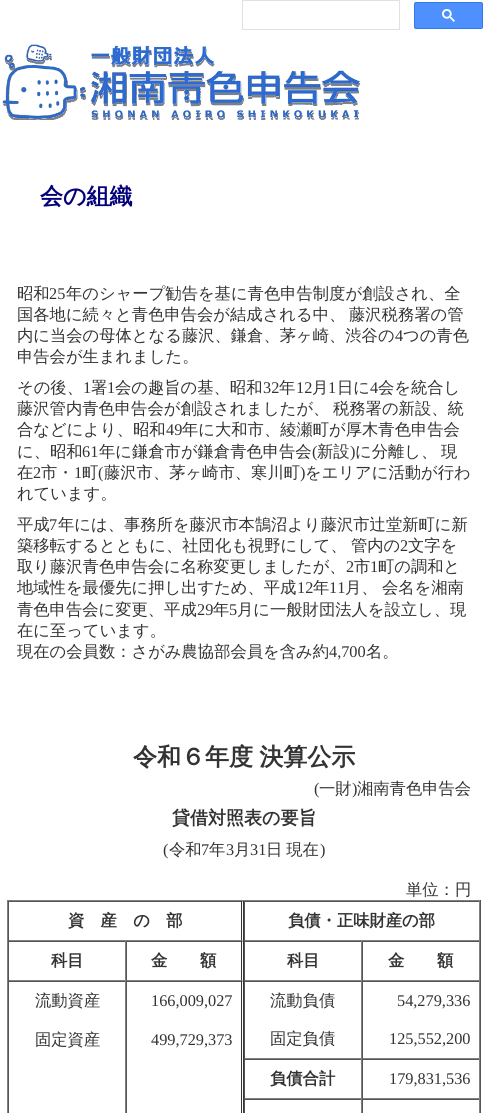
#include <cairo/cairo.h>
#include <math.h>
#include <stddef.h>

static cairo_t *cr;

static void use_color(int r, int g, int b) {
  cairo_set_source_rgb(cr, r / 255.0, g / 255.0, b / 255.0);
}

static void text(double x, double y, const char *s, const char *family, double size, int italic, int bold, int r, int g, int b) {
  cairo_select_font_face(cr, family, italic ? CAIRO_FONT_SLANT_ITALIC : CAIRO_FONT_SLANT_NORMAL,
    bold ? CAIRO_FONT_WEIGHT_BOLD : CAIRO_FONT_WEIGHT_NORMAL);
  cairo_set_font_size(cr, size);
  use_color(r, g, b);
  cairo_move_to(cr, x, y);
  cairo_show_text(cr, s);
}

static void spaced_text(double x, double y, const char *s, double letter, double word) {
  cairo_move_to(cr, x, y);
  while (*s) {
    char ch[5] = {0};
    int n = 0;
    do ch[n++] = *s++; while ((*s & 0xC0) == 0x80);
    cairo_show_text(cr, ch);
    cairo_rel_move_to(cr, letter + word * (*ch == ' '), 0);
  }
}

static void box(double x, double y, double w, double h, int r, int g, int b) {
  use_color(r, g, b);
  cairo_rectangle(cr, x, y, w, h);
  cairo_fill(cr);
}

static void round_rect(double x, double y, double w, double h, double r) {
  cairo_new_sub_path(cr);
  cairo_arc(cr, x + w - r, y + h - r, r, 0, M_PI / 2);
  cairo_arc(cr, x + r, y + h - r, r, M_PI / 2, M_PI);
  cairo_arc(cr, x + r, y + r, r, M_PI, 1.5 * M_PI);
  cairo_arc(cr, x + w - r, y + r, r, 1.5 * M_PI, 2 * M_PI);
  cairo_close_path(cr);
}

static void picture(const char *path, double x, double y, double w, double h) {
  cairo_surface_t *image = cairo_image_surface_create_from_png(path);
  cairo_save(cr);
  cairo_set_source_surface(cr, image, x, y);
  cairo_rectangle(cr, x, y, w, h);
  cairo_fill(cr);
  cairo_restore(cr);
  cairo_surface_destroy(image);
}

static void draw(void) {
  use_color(255, 255, 255);
  cairo_paint(cr);
  cairo_rectangle(cr, 242.5, 0.5, 157, 29);
  use_color(223, 225, 229);
  cairo_set_line_width(cr, 1);
  cairo_stroke(cr);
  use_color(77, 144, 254);
  round_rect(414.5, 2.5, 68, 26, 1.5);
  cairo_fill_preserve(cr);
  use_color(48, 121, 237);
  cairo_stroke(cr);
  picture("img_01.png", 442, 9, 13, 13);
  picture("img_02.png", 2, 44, 359, 76);
  box(7, 900, 474, 1, 128, 128, 128);
  box(480, 900, 1, 213, 85, 85, 85);
  box(7, 900, 1, 213, 128, 128, 128);
  use_color(85, 85, 85);
  cairo_new_path(cr);
  cairo_move_to(cr, 8, 901);
  cairo_line_to(cr, 244, 901);
  cairo_line_to(cr, 241, 902);
  cairo_line_to(cr, 9, 902);
  cairo_close_path(cr);
  cairo_fill(cr);
  box(241, 901, 1, 40, 51, 51, 51);
  box(243, 901, 1, 40, 51, 51, 51);
  use_color(128, 128, 128);
  cairo_new_path(cr);
  cairo_move_to(cr, 244, 941);
  cairo_line_to(cr, 8, 941);
  cairo_line_to(cr, 9, 940);
  cairo_line_to(cr, 241, 940);
  cairo_close_path(cr);
  cairo_fill(cr);
  box(8, 901, 1, 40, 85, 85, 85);
  box(244, 901, 236, 1, 85, 85, 85);
  box(479, 901, 1, 40, 128, 128, 128);
  box(244, 940, 236, 1, 128, 128, 128);
  box(244, 901, 1, 40, 85, 85, 85);
  box(8, 941, 118, 1, 85, 85, 85);
  box(125, 941, 1, 40, 128, 128, 128);
  box(8, 980, 118, 1, 128, 128, 128);
  box(8, 941, 1, 40, 85, 85, 85);
  cairo_new_path(cr);
  cairo_move_to(cr, 126, 941);
  cairo_line_to(cr, 244, 941);
  cairo_line_to(cr, 241, 942);
  cairo_line_to(cr, 127, 942);
  cairo_close_path(cr);
  cairo_fill(cr);
  box(241, 941, 1, 40, 51, 51, 51);
  box(243, 941, 1, 40, 51, 51, 51);
  use_color(128, 128, 128);
  cairo_new_path(cr);
  cairo_move_to(cr, 244, 981);
  cairo_line_to(cr, 126, 981);
  cairo_line_to(cr, 127, 980);
  cairo_line_to(cr, 241, 980);
  cairo_close_path(cr);
  cairo_fill(cr);
  box(126, 941, 1, 40, 85, 85, 85);
  box(244, 941, 236, 1, 85, 85, 85);
  box(361, 941, 1, 40, 128, 128, 128);
  box(244, 980, 118, 1, 128, 128, 128);
  box(244, 941, 1, 40, 85, 85, 85);
  box(479, 941, 1, 40, 128, 128, 128);
  box(362, 980, 118, 1, 128, 128, 128);
  box(362, 941, 1, 40, 85, 85, 85);
  box(8, 981, 118, 1, 85, 85, 85);
  box(125, 981, 1, 132, 128, 128, 128);
  box(8, 981, 1, 132, 85, 85, 85);
  cairo_new_path(cr);
  cairo_move_to(cr, 126, 981);
  cairo_line_to(cr, 244, 981);
  cairo_line_to(cr, 241, 982);
  cairo_line_to(cr, 127, 982);
  cairo_close_path(cr);
  cairo_fill(cr);
  box(241, 981, 1, 132, 51, 51, 51);
  box(243, 981, 1, 132, 51, 51, 51);
  box(126, 981, 1, 132, 85, 85, 85);
  box(244, 981, 236, 1, 85, 85, 85);
  box(361, 981, 1, 78, 128, 128, 128);
  box(244, 981, 1, 39, 85, 85, 85);
  box(479, 981, 1, 78, 128, 128, 128);
  box(362, 981, 1, 39, 85, 85, 85);
  box(244, 1058, 236, 1, 128, 128, 128);
  box(244, 1020, 1, 39, 85, 85, 85);
  box(362, 1020, 1, 39, 85, 85, 85);
  box(244, 1059, 236, 1, 85, 85, 85);
  box(361, 1059, 1, 40, 128, 128, 128);
  box(244, 1098, 118, 1, 128, 128, 128);
  box(244, 1059, 1, 40, 85, 85, 85);
  box(479, 1059, 1, 40, 128, 128, 128);
  box(362, 1098, 118, 1, 128, 128, 128);
  box(362, 1059, 1, 40, 85, 85, 85);
  box(244, 1099, 236, 1, 85, 85, 85);
  box(361, 1099, 1, 14, 128, 128, 128);
  box(244, 1099, 1, 14, 85, 85, 85);
  box(479, 1099, 1, 14, 128, 128, 128);
  box(362, 1099, 1, 14, 85, 85, 85);
  text(40, 204, "会の組織", "WenQuanYi Zen Hei", 23, 0, 1, 4, 1, 123);
  text(17, 299, "昭和", "WenQuanYi Zen Hei Medium", 16.3, 0, 0, 51, 51, 51);
  text(49, 299, "25", "Liberation Serif", 16.3, 0, 0, 51, 51, 51);
  text(66, 299, "年のシャープ勧告を基に青色申告制度が創設され、全", "WenQuanYi Zen Hei Medium", 16.3, 0, 0, 51, 51, 51);
  text(17, 320, "国各地に続々と青色申告会が結成される中、", "WenQuanYi Zen Hei Medium", 16.3, 0, 0, 51, 51, 51);
  text(349, 320, "藤沢税務署の管", "WenQuanYi Zen Hei Medium", 16.3, 0, 0, 51, 51, 51);
  text(17, 341, "内に当会の母体となる藤沢、鎌倉、茅ヶ崎、渋谷の", "WenQuanYi Zen Hei Medium", 16.3, 0, 0, 51, 51, 51);
  text(395, 341, "4", "Liberation Serif", 16.3, 0, 0, 51, 51, 51);
  text(403, 341, "つの青色", "WenQuanYi Zen Hei Medium", 16.3, 0, 0, 51, 51, 51);
  text(17, 362, "申告会が生まれました。", "WenQuanYi Zen Hei Medium", 16.3, 0, 0, 51, 51, 51);
  text(17, 393, "その後、", "WenQuanYi Zen Hei Medium", 16.3, 0, 0, 51, 51, 51);
  text(83, 393, "1", "Liberation Serif", 16.3, 0, 0, 51, 51, 51);
  text(91, 393, "署", "WenQuanYi Zen Hei Medium", 16.3, 0, 0, 51, 51, 51);
  text(107, 393, "1", "Liberation Serif", 16.3, 0, 0, 51, 51, 51);
  text(115, 393, "会の趣旨の基、昭和", "WenQuanYi Zen Hei Medium", 16.3, 0, 0, 51, 51, 51);
  text(263, 393, "32", "Liberation Serif", 16.3, 0, 0, 51, 51, 51);
  text(279, 393, "年", "WenQuanYi Zen Hei Medium", 16.3, 0, 0, 51, 51, 51);
  text(296, 393, "12", "Liberation Serif", 16.3, 0, 0, 51, 51, 51);
  text(312, 393, "月", "WenQuanYi Zen Hei Medium", 16.3, 0, 0, 51, 51, 51);
  text(328, 393, "1", "Liberation Serif", 16.3, 0, 0, 51, 51, 51);
  text(337, 393, "日に", "WenQuanYi Zen Hei Medium", 16.3, 0, 0, 51, 51, 51);
  text(370, 393, "4", "Liberation Serif", 16.3, 0, 0, 51, 51, 51);
  text(378, 393, "会を統合し", "WenQuanYi Zen Hei Medium", 16.3, 0, 0, 51, 51, 51);
  text(17, 414, "藤沢管内青色申告会が創設されましたが、", "WenQuanYi Zen Hei Medium", 16.3, 0, 0, 51, 51, 51);
  text(333, 414, "税務署の新設、統", "WenQuanYi Zen Hei Medium", 16.3, 0, 0, 51, 51, 51);
  text(17, 435, "合などにより、昭和", "WenQuanYi Zen Hei Medium", 16.3, 0, 0, 51, 51, 51);
  text(166, 435, "49", "Liberation Serif", 16.3, 0, 0, 51, 51, 51);
  text(182, 435, "年に大和市、綾瀬町が厚木青色申告会", "WenQuanYi Zen Hei Medium", 16.3, 0, 0, 51, 51, 51);
  text(17, 457, "に、昭和", "WenQuanYi Zen Hei Medium", 16.3, 0, 0, 51, 51, 51);
  text(82, 457, "61", "Liberation Serif", 16.3, 0, 0, 51, 51, 51);
  text(99, 457, "年に鎌倉市が鎌倉青色申告会", "WenQuanYi Zen Hei Medium", 16.3, 0, 0, 51, 51, 51);
  text(312, 457, "(", "Liberation Serif", 16.3, 0, 0, 51, 51, 51);
  text(317, 457, "新設", "WenQuanYi Zen Hei Medium", 16.3, 0, 0, 51, 51, 51);
  text(350, 457, ")", "Liberation Serif", 16.3, 0, 0, 51, 51, 51);
  text(355, 457, "に分離し、", "WenQuanYi Zen Hei Medium", 16.3, 0, 0, 51, 51, 51);
  text(441, 457, "現", "WenQuanYi Zen Hei Medium", 16.3, 0, 0, 51, 51, 51);
  text(17, 478, "在", "WenQuanYi Zen Hei Medium", 16.3, 0, 0, 51, 51, 51);
  text(33, 478, "2", "Liberation Serif", 16.3, 0, 0, 51, 51, 51);
  text(41, 478, "市・", "WenQuanYi Zen Hei Medium", 16.3, 0, 0, 51, 51, 51);
  text(74, 478, "1", "Liberation Serif", 16.3, 0, 0, 51, 51, 51);
  text(82, 478, "町", "WenQuanYi Zen Hei Medium", 16.3, 0, 0, 51, 51, 51);
  text(98, 478, "(", "Liberation Serif", 16.3, 0, 0, 51, 51, 51);
  text(104, 478, "藤沢市、茅ヶ崎市、寒川町", "WenQuanYi Zen Hei Medium", 16.3, 0, 0, 51, 51, 51);
  text(300, 478, ")", "Liberation Serif", 16.3, 0, 0, 51, 51, 51);
  text(305, 478, "をエリアに活動が行わ", "WenQuanYi Zen Hei Medium", 16.3, 0, 0, 51, 51, 51);
  text(17, 499, "れています。", "WenQuanYi Zen Hei Medium", 16.3, 0, 0, 51, 51, 51);
  text(17, 530, "平成", "WenQuanYi Zen Hei Medium", 16.3, 0, 0, 51, 51, 51);
  text(49, 530, "7", "Liberation Serif", 16.3, 0, 0, 51, 51, 51);
  text(58, 530, "年には、事務所を藤沢市本鵠沼より藤沢市辻堂新町に新", "WenQuanYi Zen Hei Medium", 16.3, 0, 0, 51, 51, 51);
  text(17, 551, "築移転するとともに、社団化も視野にして、", "WenQuanYi Zen Hei Medium", 16.3, 0, 0, 51, 51, 51);
  text(351, 551, "管内の", "WenQuanYi Zen Hei Medium", 16.3, 0, 0, 51, 51, 51);
  text(400, 551, "2", "Liberation Serif", 16.3, 0, 0, 51, 51, 51);
  text(408, 551, "文字を", "WenQuanYi Zen Hei Medium", 16.3, 0, 0, 51, 51, 51);
  text(17, 572, "取り藤沢青色申告会に名称変更しましたが、", "WenQuanYi Zen Hei Medium", 16.3, 0, 0, 51, 51, 51);
  text(346, 572, "2", "Liberation Serif", 16.3, 0, 0, 51, 51, 51);
  text(354, 572, "市", "WenQuanYi Zen Hei Medium", 16.3, 0, 0, 51, 51, 51);
  text(370, 572, "1", "Liberation Serif", 16.3, 0, 0, 51, 51, 51);
  text(378, 572, "町の調和と", "WenQuanYi Zen Hei Medium", 16.3, 0, 0, 51, 51, 51);
  text(17, 593, "地域性を最優先に押し出すため、平成", "WenQuanYi Zen Hei Medium", 16.3, 0, 0, 51, 51, 51);
  text(297, 593, "12", "Liberation Serif", 16.3, 0, 0, 51, 51, 51);
  text(313, 593, "年", "WenQuanYi Zen Hei Medium", 16.3, 0, 0, 51, 51, 51);
  text(329, 593, "11", "Liberation Serif", 16.3, 0, 0, 51, 51, 51);
  text(345, 593, "月、", "WenQuanYi Zen Hei Medium", 16.3, 0, 0, 51, 51, 51);
  text(382, 593, "会名を湘南", "WenQuanYi Zen Hei Medium", 16.3, 0, 0, 51, 51, 51);
  text(17, 615, "青色申告会に変更、平成", "WenQuanYi Zen Hei Medium", 16.3, 0, 0, 51, 51, 51);
  text(197, 615, "29", "Liberation Serif", 16.3, 0, 0, 51, 51, 51);
  text(213, 615, "年", "WenQuanYi Zen Hei Medium", 16.3, 0, 0, 51, 51, 51);
  text(229, 615, "5", "Liberation Serif", 16.3, 0, 0, 51, 51, 51);
  text(237, 615, "月に一般財団法人を設立し、現", "WenQuanYi Zen Hei Medium", 16.3, 0, 0, 51, 51, 51);
  text(17, 636, "在に至っています。", "WenQuanYi Zen Hei Medium", 16.3, 0, 0, 51, 51, 51);
  text(17, 657, "現在の会員数：さがみ農協部会員を含み約", "WenQuanYi Zen Hei Medium", 16.3, 0, 0, 51, 51, 51);
  text(329, 657, "4,700", "Liberation Serif", 16.3, 0, 0, 51, 51, 51);
  text(366, 657, "名。", "WenQuanYi Zen Hei Medium", 16.3, 0, 0, 51, 51, 51);
  cairo_select_font_face(cr, "WenQuanYi Zen Hei", CAIRO_FONT_SLANT_NORMAL, CAIRO_FONT_WEIGHT_BOLD);
  cairo_set_font_size(cr, 24);
  spaced_text(133, 765, "令和６年度 決算公示", 0, -1);
  text(314, 794, "(", "Liberation Serif", 16.3, 0, 0, 51, 51, 51);
  text(319, 794, "一財", "WenQuanYi Zen Hei Medium", 16.3, 0, 0, 51, 51, 51);
  text(352, 794, ")", "Liberation Serif", 16.3, 0, 0, 51, 51, 51);
  text(357, 794, "湘南青色申告会", "WenQuanYi Zen Hei Medium", 16.3, 0, 0, 51, 51, 51);
  text(172, 824, "貸借対照表の要旨", "WenQuanYi Zen Hei", 18, 0, 1, 51, 51, 51);
  text(163, 855, "(", "Liberation Serif", 16.3, 0, 0, 51, 51, 51);
  text(169, 855, "令和", "WenQuanYi Zen Hei Medium", 16.3, 0, 0, 51, 51, 51);
  text(201, 855, "7", "Liberation Serif", 16.3, 0, 0, 51, 51, 51);
  text(209, 855, "年", "WenQuanYi Zen Hei Medium", 16.3, 0, 0, 51, 51, 51);
  text(226, 855, "3", "Liberation Serif", 16.3, 0, 0, 51, 51, 51);
  text(234, 855, "月", "WenQuanYi Zen Hei Medium", 16.3, 0, 0, 51, 51, 51);
  text(250, 855, "31", "Liberation Serif", 16.3, 0, 0, 51, 51, 51);
  cairo_select_font_face(cr, "WenQuanYi Zen Hei Medium", CAIRO_FONT_SLANT_NORMAL, CAIRO_FONT_WEIGHT_NORMAL);
  spaced_text(266, 855, "日 現在", 0, -1);
  text(320, 855, ")", "Liberation Serif", 16.3, 0, 0, 51, 51, 51);
  text(406, 895, "単位：円", "WenQuanYi Zen Hei Medium", 16.3, 0, 0, 51, 51, 51);
  text(68, 926, "資　産　の　部", "WenQuanYi Zen Hei", 16.3, 0, 1, 51, 51, 51);
  text(288, 926, "負債・正味財産の部", "WenQuanYi Zen Hei", 16.3, 0, 1, 51, 51, 51);
  text(51, 966, "科目", "WenQuanYi Zen Hei", 16.3, 0, 1, 51, 51, 51);
  text(151, 966, "金　　額", "WenQuanYi Zen Hei", 16.3, 0, 1, 51, 51, 51);
  text(287, 966, "科目", "WenQuanYi Zen Hei", 16.3, 0, 1, 51, 51, 51);
  text(388, 966, "金　　額", "WenQuanYi Zen Hei", 16.3, 0, 1, 51, 51, 51);
  text(35, 1006, "流動資産", "WenQuanYi Zen Hei Medium", 16.3, 0, 0, 51, 51, 51);
  text(151, 1006, "166,009,027", "Liberation Serif", 16.3, 0, 0, 51, 51, 51);
  text(270, 1006, "流動負債", "WenQuanYi Zen Hei Medium", 16.3, 0, 0, 51, 51, 51);
  text(397, 1006, "54,279,336", "Liberation Serif", 16.3, 0, 0, 51, 51, 51);
  text(35, 1045, "固定資産", "WenQuanYi Zen Hei Medium", 16.3, 0, 0, 51, 51, 51);
  text(151, 1045, "499,729,373", "Liberation Serif", 16.3, 0, 0, 51, 51, 51);
  text(270, 1044, "固定負債", "WenQuanYi Zen Hei Medium", 16.3, 0, 0, 51, 51, 51);
  text(389, 1044, "125,552,200", "Liberation Serif", 16.3, 0, 0, 51, 51, 51);
  text(270, 1084, "負債合計", "WenQuanYi Zen Hei", 16.3, 0, 1, 51, 51, 51);
  text(389, 1084, "179,831,536", "Liberation Serif", 16.3, 0, 0, 51, 51, 51);
}

int main(void) {
  cairo_surface_t *surface = cairo_image_surface_create(CAIRO_FORMAT_RGB24, 483, 1113);
  cr = cairo_create(surface);
  cairo_font_options_t *options = cairo_font_options_create();
  cairo_font_options_set_hint_metrics(options, CAIRO_HINT_METRICS_OFF);
  cairo_font_options_set_hint_style(options, CAIRO_HINT_STYLE_NONE);
  cairo_set_font_options(cr, options);
  cairo_set_miter_limit(cr, 4);
  draw();
  cairo_surface_write_to_png(surface, "out.png");
  cairo_font_options_destroy(options);
  cairo_destroy(cr);
  cairo_surface_destroy(surface);
  return 0;
}
